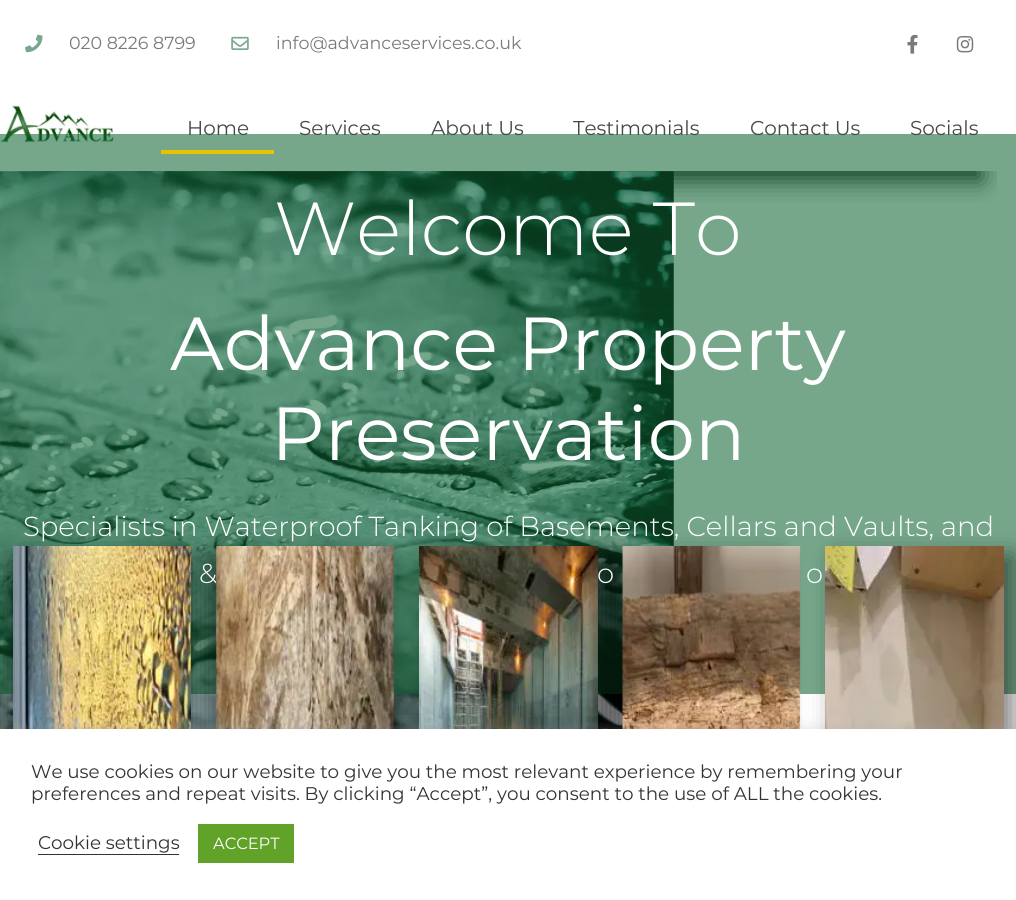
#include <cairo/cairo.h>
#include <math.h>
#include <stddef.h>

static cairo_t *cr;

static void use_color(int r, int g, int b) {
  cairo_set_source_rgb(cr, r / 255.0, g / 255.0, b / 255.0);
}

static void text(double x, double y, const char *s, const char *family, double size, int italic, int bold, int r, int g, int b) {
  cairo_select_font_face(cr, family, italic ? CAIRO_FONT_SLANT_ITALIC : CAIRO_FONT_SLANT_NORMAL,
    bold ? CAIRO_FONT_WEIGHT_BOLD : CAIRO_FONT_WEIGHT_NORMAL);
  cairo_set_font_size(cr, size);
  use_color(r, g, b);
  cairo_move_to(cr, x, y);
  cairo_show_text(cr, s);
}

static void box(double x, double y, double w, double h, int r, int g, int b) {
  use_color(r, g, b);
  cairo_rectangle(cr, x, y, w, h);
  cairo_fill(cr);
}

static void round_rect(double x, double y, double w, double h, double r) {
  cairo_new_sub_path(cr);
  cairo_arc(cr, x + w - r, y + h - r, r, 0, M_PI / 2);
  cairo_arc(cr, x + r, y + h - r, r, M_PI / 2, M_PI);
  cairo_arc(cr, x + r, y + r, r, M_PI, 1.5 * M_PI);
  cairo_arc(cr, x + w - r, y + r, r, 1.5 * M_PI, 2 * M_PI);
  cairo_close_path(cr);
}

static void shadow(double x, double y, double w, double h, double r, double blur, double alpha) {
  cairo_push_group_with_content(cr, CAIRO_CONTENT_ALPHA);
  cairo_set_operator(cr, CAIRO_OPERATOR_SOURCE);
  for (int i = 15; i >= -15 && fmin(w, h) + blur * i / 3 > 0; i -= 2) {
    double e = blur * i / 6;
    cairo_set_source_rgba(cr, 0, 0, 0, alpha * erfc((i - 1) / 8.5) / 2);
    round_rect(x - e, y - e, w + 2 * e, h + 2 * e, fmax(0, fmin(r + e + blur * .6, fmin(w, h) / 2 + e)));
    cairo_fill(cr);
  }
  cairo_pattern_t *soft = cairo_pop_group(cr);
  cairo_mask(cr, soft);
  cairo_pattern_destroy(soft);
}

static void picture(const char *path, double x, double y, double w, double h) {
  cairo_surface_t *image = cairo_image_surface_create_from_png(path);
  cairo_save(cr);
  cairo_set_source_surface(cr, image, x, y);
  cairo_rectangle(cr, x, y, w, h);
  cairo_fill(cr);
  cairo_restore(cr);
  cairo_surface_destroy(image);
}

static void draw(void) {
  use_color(255, 255, 255);
  cairo_paint(cr);
  picture("img_01.png", 25, 34, 18, 19);
  picture("img_02.png", 231, 36, 18, 14);
  picture("img_03.png", 907, 34, 11, 20);
  picture("img_04.png", 956, 36, 18, 17);
  cairo_save(cr);
  cairo_rectangle(cr, 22, 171, 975, 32);
  cairo_clip(cr);
  use_color(0, 0, 0);
  shadow(38, 169, 941, 9, 0, 12.5, 1);
  cairo_restore(cr);
  picture("img_05.png", 0, 105, 114, 38);
  picture("img_06.png", 0, 171, 674, 558);
  cairo_set_source_rgba(cr, 0.059, 0.396, 0.204, 0.57);
  cairo_rectangle(cr, 0, 134, 1016, 560);
  cairo_fill(cr);
  box(161, 150, 113, 4, 232, 194, 4);
  use_color(0, 0, 0);
  shadow(13, 556, 178, 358, 0, 12.5, 0.5);
  picture("img_07.png", 13, 546, 178, 183);
  shadow(206, 556, 178, 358, 0, 12.5, 0.5);
  shadow(439, 556, 179, 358, 0, 12.5, 0.5);
  picture("img_09.png", 419, 546, 179, 183);
  shadow(603, 556, 177, 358, 0, 12.5, 0.5);
  picture("img_10.png", 622, 546, 179, 183);
  shadow(835, 556, 179, 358, 0, 12.5, 0.5);
  picture("img_11.png", 825, 546, 179, 183);
  text(69, 49, "020 8226 8799", "Montserrat", 17.5, 0, 0, 122, 122, 122);
  text(276, 49, "info@advanceservices.co.uk", "Montserrat", 17.5, 0, 0, 122, 122, 122);
  text(187, 135, "Home", "Montserrat", 20, 0, 0, 71, 72, 71);
  text(299, 135, "Services", "Montserrat", 20, 0, 0, 71, 72, 71);
  text(431, 135, "About Us", "Montserrat", 20, 0, 0, 71, 72, 71);
  text(573, 135, "Testimonials", "Montserrat", 20, 0, 0, 71, 72, 71);
  text(750, 135, "Contact Us", "Montserrat", 20, 0, 0, 71, 72, 71);
  text(910, 135, "Socials", "Montserrat", 20, 0, 0, 71, 72, 71);
  text(274, 255, "Welcome To", "Montserrat Light", 75, 0, 0, 255, 255, 255);
  text(170, 370, "Advance Property", "Montserrat", 75, 0, 0, 255, 255, 255);
  text(271, 460, "Preservation", "Montserrat", 75, 0, 0, 255, 255, 255);
  text(23, 536, "Specialists in Waterproof Tanking of Basements, Cellars and Vaults, and", "Montserrat Light", 27.5, 0, 0, 255, 255, 255);
  text(199, 583, "&", "Montserrat Light", 27.5, 0, 0, 255, 255, 255);
  text(597, 583, "o", "Montserrat Light", 27.5, 0, 0, 255, 255, 255);
  text(806, 583, "o", "Montserrat Light", 27.5, 0, 0, 255, 255, 255);
  picture("img_08.png", 216, 546, 179, 183);
  use_color(172, 171, 171);
  shadow(0, 728, 1016, 171, 0, 6, 0.3);
  box(0, 729, 1016, 171, 255, 255, 255);
  text(31, 778, "We use cookies on our website to give you the most relevant experience by remembering your", "Montserrat", 18.35, 0, 0, 51, 51, 51);
  text(31, 800, "preferences and repeat visits. By clicking “Accept”, you consent to the use of ALL the cookies.", "Montserrat", 18.35, 0, 0, 51, 51, 51);
  text(38, 849, "Cookie settings", "Montserrat", 18.35, 0, 0, 51, 51, 51);
  box(38, 854, 141, 1, 51, 51, 51);
  box(198, 824, 96, 39, 97, 162, 41);
  text(213, 849, "ACCEPT", "Montserrat", 16.25, 0, 0, 255, 255, 255);
}

int main(void) {
  cairo_surface_t *surface = cairo_image_surface_create(CAIRO_FORMAT_RGB24, 1016, 900);
  cr = cairo_create(surface);
  cairo_font_options_t *options = cairo_font_options_create();
  cairo_font_options_set_hint_metrics(options, CAIRO_HINT_METRICS_OFF);
  cairo_font_options_set_hint_style(options, CAIRO_HINT_STYLE_NONE);
  cairo_set_font_options(cr, options);
  cairo_set_miter_limit(cr, 4);
  draw();
  cairo_surface_write_to_png(surface, "out.png");
  cairo_font_options_destroy(options);
  cairo_destroy(cr);
  cairo_surface_destroy(surface);
  return 0;
}
